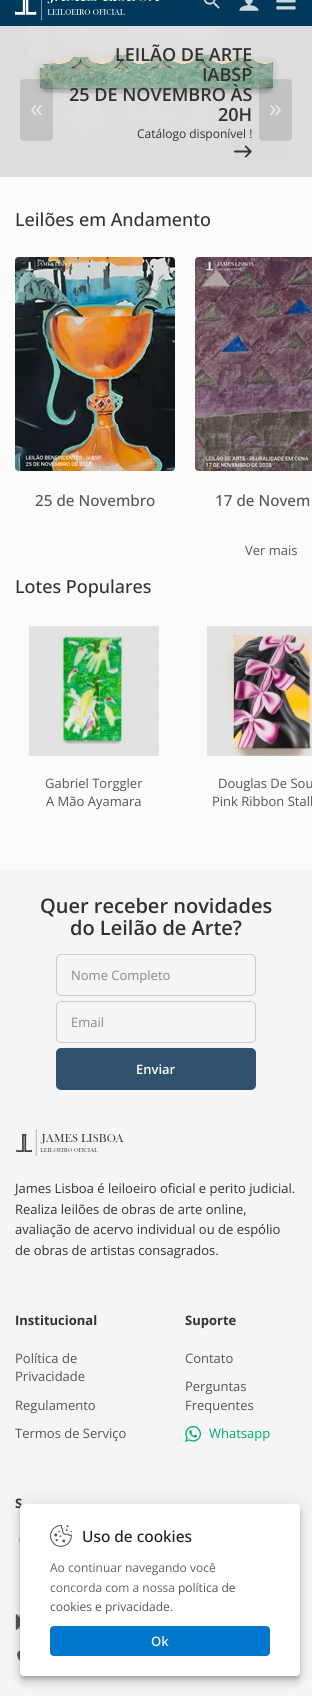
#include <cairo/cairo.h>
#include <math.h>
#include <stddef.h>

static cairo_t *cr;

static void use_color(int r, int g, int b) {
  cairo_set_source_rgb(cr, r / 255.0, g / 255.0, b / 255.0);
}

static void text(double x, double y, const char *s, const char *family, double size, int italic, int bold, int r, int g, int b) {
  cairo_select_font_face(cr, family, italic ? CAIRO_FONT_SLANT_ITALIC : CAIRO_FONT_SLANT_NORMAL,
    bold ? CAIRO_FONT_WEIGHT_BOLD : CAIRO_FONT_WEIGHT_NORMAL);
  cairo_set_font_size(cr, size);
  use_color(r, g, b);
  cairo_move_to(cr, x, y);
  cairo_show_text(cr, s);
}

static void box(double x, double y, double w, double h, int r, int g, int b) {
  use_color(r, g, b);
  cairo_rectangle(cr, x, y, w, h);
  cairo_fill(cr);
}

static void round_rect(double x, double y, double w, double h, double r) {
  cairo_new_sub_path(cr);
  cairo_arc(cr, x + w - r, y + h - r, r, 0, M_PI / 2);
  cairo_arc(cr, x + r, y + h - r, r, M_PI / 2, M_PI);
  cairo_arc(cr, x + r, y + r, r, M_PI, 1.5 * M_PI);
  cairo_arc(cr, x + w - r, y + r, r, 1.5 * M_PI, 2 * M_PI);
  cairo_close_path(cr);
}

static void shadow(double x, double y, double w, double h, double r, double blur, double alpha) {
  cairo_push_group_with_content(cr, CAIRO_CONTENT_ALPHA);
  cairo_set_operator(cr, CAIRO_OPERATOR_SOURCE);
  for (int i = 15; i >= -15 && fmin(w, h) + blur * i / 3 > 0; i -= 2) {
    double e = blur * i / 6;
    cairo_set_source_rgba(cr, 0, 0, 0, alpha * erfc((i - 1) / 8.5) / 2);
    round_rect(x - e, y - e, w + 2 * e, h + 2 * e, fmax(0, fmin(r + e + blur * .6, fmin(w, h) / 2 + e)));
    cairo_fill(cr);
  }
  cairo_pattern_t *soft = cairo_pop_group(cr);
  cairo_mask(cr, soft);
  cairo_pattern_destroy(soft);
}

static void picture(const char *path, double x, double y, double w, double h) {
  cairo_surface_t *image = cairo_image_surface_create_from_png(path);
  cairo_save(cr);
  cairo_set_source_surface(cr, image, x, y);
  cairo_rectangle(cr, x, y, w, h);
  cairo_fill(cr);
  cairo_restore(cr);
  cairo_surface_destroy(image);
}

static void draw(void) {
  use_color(251, 251, 251);
  cairo_paint(cr);
  box(0, 0, 312, 26, 0, 57, 90);
  picture("img_01.png", 15, 0, 145, 20);
  picture("img_02.png", 204, 0, 16, 9);
  picture("img_03.png", 239, 0, 20, 11);
  picture("img_04.png", 276, 0, 20, 10);
  picture("img_05.png", 0, 26, 312, 151);
  cairo_set_source_rgba(cr, 0, 0, 0, 0.12);
  round_rect(20, 79, 33, 62, 4);
  cairo_fill(cr);
  picture("img_06.png", 234, 145, 18, 13);
  round_rect(259, 79, 33, 62, 4);
  cairo_fill(cr);
  picture("img_07.png", 15, 257, 160, 214);
  picture("img_08.png", 195, 257, 117, 214);
  picture("img_09.png", 29, 626, 130, 130);
  picture("img_10.png", 207, 626, 105, 130);
  box(0, 870, 312, 826, 245, 245, 245);
  round_rect(56.5, 954.5, 199, 41, 4.5);
  use_color(204, 204, 204);
  cairo_set_line_width(cr, 1);
  cairo_stroke(cr);
  round_rect(56.5, 1001.5, 199, 41, 4.5);
  cairo_stroke(cr);
  use_color(49, 82, 111);
  round_rect(56, 1048, 200, 42, 5);
  cairo_fill(cr);
  picture("img_11.png", 16, 1130, 108, 26);
  cairo_new_path(cr);
  cairo_move_to(cr, 15, 1289.5);
  cairo_line_to(cr, 297, 1289.5);
  use_color(238, 238, 238);
  cairo_set_dash(cr, (double[]){1, 1}, 2, 0);
  cairo_stroke(cr);
  picture("img_12.png", 185, 1426, 16, 16);
  cairo_new_path(cr);
  cairo_move_to(cr, 15, 1472.5);
  cairo_line_to(cr, 297, 1472.5);
  cairo_stroke(cr);
  picture("img_13.png", 19, 1538, 1, 4);
  picture("img_14.png", 15, 1614, 5, 16);
  picture("img_15.png", 17, 1650, 3, 11);
  use_color(0, 0, 0);
  shadow(20, 1504, 280, 172, 4, 8, 0.1);
  shadow(20, 1512, 280, 172, 4, 4, 0.1);
  shadow(20, 1508, 280, 172, 4, 2, 0.1);
  shadow(20, 1506, 280, 172, 4, 1, 0.1);
  text(30, 117, "«", "Open Sans", 26, 0, 0, 232, 232, 233);
  text(115, 61, "LEILÃO DE ARTE", "Open Sans SemiBold", 18, 0, 0, 50, 50, 50);
  text(202, 81, "IABSP", "Open Sans SemiBold", 18, 0, 0, 50, 50, 50);
  text(69, 101, "25 DE NOVEMBRO ÀS", "Open Sans SemiBold", 18, 0, 0, 50, 50, 50);
  text(218, 121, "20H", "Open Sans SemiBold", 18, 0, 0, 50, 50, 50);
  text(137, 138, "Catálogo disponível !", "Open Sans", 12, 0, 0, 50, 50, 50);
  text(269, 117, "»", "Open Sans", 26, 0, 0, 232, 232, 233);
  text(15, 226, "Leilões em Andamento", "Open Sans Medium", 18, 0, 0, 50, 50, 50);
  text(35, 506, "25 de Novembro", "Open Sans Medium", 15.25, 0, 0, 85, 85, 85);
  text(215, 506, "17 de Novem", "Open Sans Medium", 15.25, 0, 0, 85, 85, 85);
  text(245, 555, "Ver mais", "Open Sans", 13, 0, 0, 85, 85, 85);
  text(15, 593, "Lotes Populares", "Open Sans Medium", 18, 0, 0, 50, 50, 50);
  text(45, 788, "Gabriel Torggler", "Open Sans", 13, 0, 0, 85, 85, 85);
  text(46, 806, "A Mão Ayamara", "Open Sans", 13, 0, 0, 85, 85, 85);
  text(218, 788, "Douglas De Sou", "Open Sans", 13, 0, 0, 85, 85, 85);
  text(212, 806, "Pink Ribbon Stall", "Open Sans", 13, 0, 0, 85, 85, 85);
  text(40, 913, "Quer receber novidades", "Open Sans SemiBold", 20, 0, 0, 50, 50, 50);
  text(70, 935, "do Leilão de Arte?", "Open Sans SemiBold", 20, 0, 0, 50, 50, 50);
  text(71, 980, "Nome Completo", "Open Sans", 13, 0, 0, 136, 136, 136);
  text(71, 1027, "Email", "Open Sans", 13, 0, 0, 136, 136, 136);
  text(136, 1074, "Enviar", "Open Sans SemiBold", 13, 0, 0, 255, 255, 255);
  text(15, 1193, "James Lisboa é leiloeiro oficial e perito judicial.", "Open Sans", 13, 0, 0, 50, 50, 50);
  text(15, 1214, "Realiza leilões de obras de arte online,", "Open Sans", 13, 0, 0, 50, 50, 50);
  text(15, 1234, "avaliação de acervo individual ou de espólio", "Open Sans", 13, 0, 0, 50, 50, 50);
  text(15, 1255, "de obras de artistas consagrados.", "Open Sans", 13, 0, 0, 50, 50, 50);
  text(15, 1325, "Institucional", "Open Sans", 13, 0, 1, 50, 50, 50);
  text(15, 1363, "Política de", "Open Sans", 13, 0, 0, 85, 85, 85);
  text(15, 1381, "Privacidade", "Open Sans", 13, 0, 0, 85, 85, 85);
  text(15, 1410, "Regulamento", "Open Sans", 13, 0, 0, 85, 85, 85);
  text(15, 1438, "Termos de Serviço", "Open Sans", 13, 0, 0, 85, 85, 85);
  text(185, 1325, "Suporte", "Open Sans", 13, 0, 1, 50, 50, 50);
  text(185, 1363, "Contato", "Open Sans", 13, 0, 0, 85, 85, 85);
  text(185, 1391, "Perguntas", "Open Sans", 13, 0, 0, 85, 85, 85);
  text(185, 1410, "Frequentes", "Open Sans", 13, 0, 0, 85, 85, 85);
  text(209, 1438, "Whatsapp", "Open Sans", 13, 0, 0, 0, 166, 118);
  text(15, 1508, "S", "Open Sans", 13, 0, 1, 50, 50, 50);
  use_color(255, 255, 255);
  round_rect(20, 1504, 280, 172, 4);
  cairo_fill(cr);
  picture("img_16.png", 50, 1525, 22, 22);
  text(82, 1542, "Uso de cookies", "Open Sans Medium", 15.5, 0, 0, 26, 26, 26);
  text(50, 1572, "Ao continuar navegando você", "Open Sans", 12, 0, 0, 99, 99, 99);
  text(50, 1592, "concorda com a nossa", "Open Sans", 12, 0, 0, 99, 99, 99);
  text(178, 1592, "política de", "Open Sans", 12, 0, 0, 85, 85, 85);
  text(50, 1611, "cookies e privacidade", "Open Sans", 12, 0, 0, 85, 85, 85);
  text(170, 1611, ".", "Open Sans", 12, 0, 0, 99, 99, 99);
  use_color(0, 119, 204);
  round_rect(50, 1626, 220, 30, 4);
  cairo_fill(cr);
  text(151, 1646, "Ok", "Open Sans SemiBold", 13, 0, 0, 241, 241, 241);
}

int main(void) {
  cairo_surface_t *surface = cairo_image_surface_create(CAIRO_FORMAT_RGB24, 312, 1696);
  cr = cairo_create(surface);
  cairo_font_options_t *options = cairo_font_options_create();
  cairo_font_options_set_hint_metrics(options, CAIRO_HINT_METRICS_OFF);
  cairo_font_options_set_hint_style(options, CAIRO_HINT_STYLE_NONE);
  cairo_set_font_options(cr, options);
  cairo_set_miter_limit(cr, 4);
  draw();
  cairo_surface_write_to_png(surface, "out.png");
  cairo_font_options_destroy(options);
  cairo_destroy(cr);
  cairo_surface_destroy(surface);
  return 0;
}
